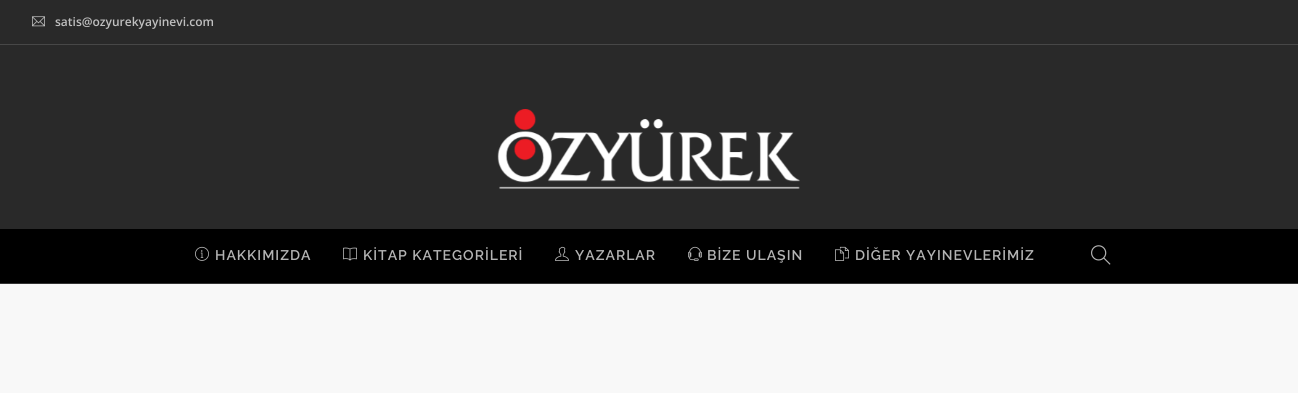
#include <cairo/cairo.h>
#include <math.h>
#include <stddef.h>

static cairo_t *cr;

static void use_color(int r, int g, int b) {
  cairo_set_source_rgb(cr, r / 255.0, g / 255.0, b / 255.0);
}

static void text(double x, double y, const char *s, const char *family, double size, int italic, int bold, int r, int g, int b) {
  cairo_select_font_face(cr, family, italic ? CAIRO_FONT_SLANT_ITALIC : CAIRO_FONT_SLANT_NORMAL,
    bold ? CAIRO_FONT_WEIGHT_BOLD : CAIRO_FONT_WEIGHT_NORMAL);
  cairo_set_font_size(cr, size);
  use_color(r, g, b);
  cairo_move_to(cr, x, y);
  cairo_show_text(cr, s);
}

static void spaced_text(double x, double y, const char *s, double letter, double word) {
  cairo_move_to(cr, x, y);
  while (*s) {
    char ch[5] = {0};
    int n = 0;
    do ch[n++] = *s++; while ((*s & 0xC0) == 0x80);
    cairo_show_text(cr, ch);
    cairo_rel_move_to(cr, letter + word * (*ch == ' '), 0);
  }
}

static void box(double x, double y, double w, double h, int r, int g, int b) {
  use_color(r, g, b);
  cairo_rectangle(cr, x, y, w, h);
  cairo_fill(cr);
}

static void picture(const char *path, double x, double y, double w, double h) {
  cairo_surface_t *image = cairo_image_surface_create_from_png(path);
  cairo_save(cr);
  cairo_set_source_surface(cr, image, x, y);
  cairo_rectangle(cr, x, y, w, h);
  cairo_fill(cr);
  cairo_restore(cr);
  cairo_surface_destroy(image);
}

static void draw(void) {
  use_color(41, 41, 41);
  cairo_paint(cr);
  box(0, 44, 1298, 1, 71, 71, 71);
  picture("img_01.png", 32, 16, 13, 11);
  picture("img_02.png", 497, 109, 303, 80);
  box(0, 229, 1298, 54, 0, 0, 0);
  box(0, 283, 1298, 1, 51, 51, 51);
  picture("img_03.png", 195, 246, 14, 15);
  picture("img_04.png", 343, 247, 14, 14);
  picture("img_05.png", 555, 246, 14, 15);
  picture("img_06.png", 688, 246, 14, 15);
  picture("img_07.png", 835, 246, 14, 15);
  picture("img_08.png", 1091, 245, 20, 20);
  box(0, 284, 1298, 109, 248, 248, 248);
  text(55, 26, "satis@ozyurekyayinevi.com", "Open Sans SemiBold", 12, 0, 0, 191, 191, 191);
  cairo_select_font_face(cr, "Raleway SemiBold", CAIRO_FONT_SLANT_NORMAL, CAIRO_FONT_WEIGHT_NORMAL);
  cairo_set_font_size(cr, 14);
  use_color(179, 179, 179);
  spaced_text(215, 260, "HAKKIMIZDA", 1, 0);
  spaced_text(363, 260, "KİTAP KATEGORİLERİ", 1, 0);
  spaced_text(575, 260, "YAZARLAR", 1, 0);
  spaced_text(707, 260, "BİZE ULAŞIN", 1, 0);
  spaced_text(855, 260, "DİĞER YAYINEVLERİMİZ", 1, 0);
}

int main(void) {
  cairo_surface_t *surface = cairo_image_surface_create(CAIRO_FORMAT_RGB24, 1298, 393);
  cr = cairo_create(surface);
  cairo_font_options_t *options = cairo_font_options_create();
  cairo_font_options_set_hint_metrics(options, CAIRO_HINT_METRICS_OFF);
  cairo_font_options_set_hint_style(options, CAIRO_HINT_STYLE_NONE);
  cairo_set_font_options(cr, options);
  cairo_set_miter_limit(cr, 4);
  draw();
  cairo_surface_write_to_png(surface, "out.png");
  cairo_font_options_destroy(options);
  cairo_destroy(cr);
  cairo_surface_destroy(surface);
  return 0;
}
